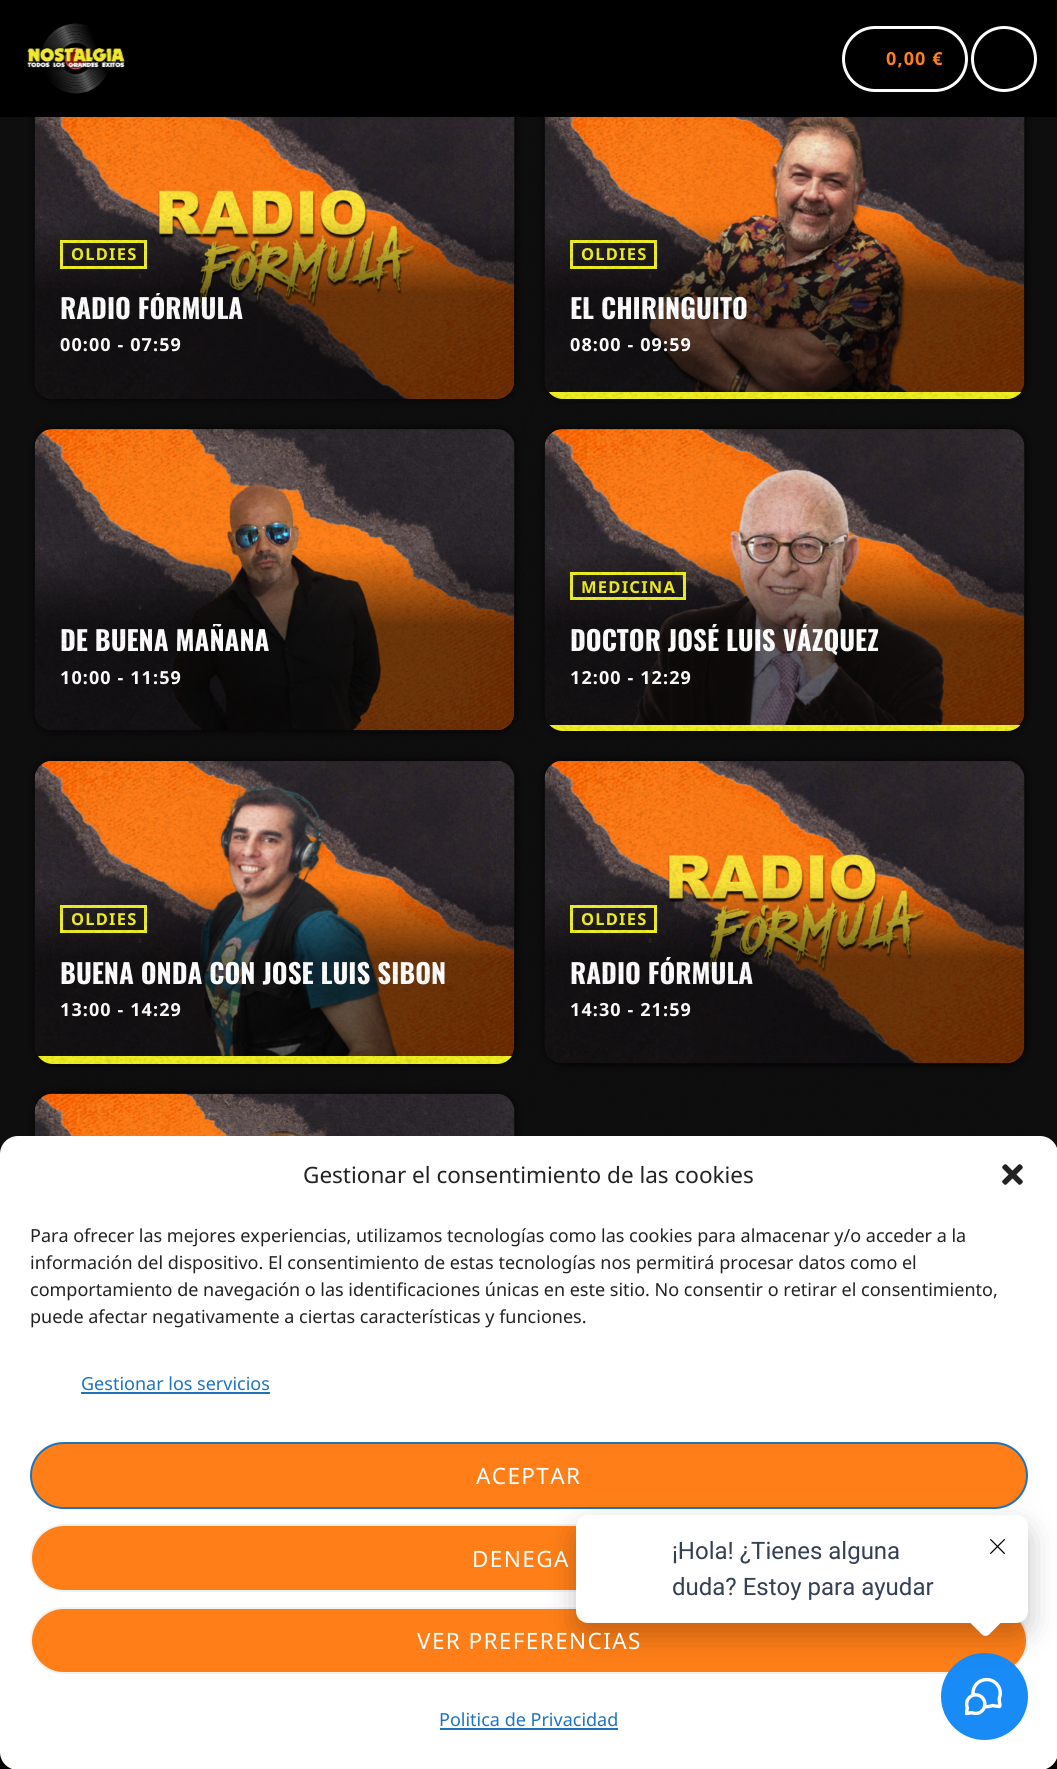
#include <cairo/cairo.h>
#include <math.h>
#include <stddef.h>

static cairo_t *cr;

static void use_color(int r, int g, int b) {
  cairo_set_source_rgb(cr, r / 255.0, g / 255.0, b / 255.0);
}

static void text(double x, double y, const char *s, const char *family, double size, int italic, int bold, int r, int g, int b) {
  cairo_select_font_face(cr, family, italic ? CAIRO_FONT_SLANT_ITALIC : CAIRO_FONT_SLANT_NORMAL,
    bold ? CAIRO_FONT_WEIGHT_BOLD : CAIRO_FONT_WEIGHT_NORMAL);
  cairo_set_font_size(cr, size);
  use_color(r, g, b);
  cairo_move_to(cr, x, y);
  cairo_show_text(cr, s);
}

static void spaced_text(double x, double y, const char *s, double letter, double word) {
  cairo_move_to(cr, x, y);
  while (*s) {
    char ch[5] = {0};
    int n = 0;
    do ch[n++] = *s++; while ((*s & 0xC0) == 0x80);
    cairo_show_text(cr, ch);
    cairo_rel_move_to(cr, letter + word * (*ch == ' '), 0);
  }
}

static void box(double x, double y, double w, double h, int r, int g, int b) {
  use_color(r, g, b);
  cairo_rectangle(cr, x, y, w, h);
  cairo_fill(cr);
}

static void round_rect(double x, double y, double w, double h, double r) {
  cairo_new_sub_path(cr);
  cairo_arc(cr, x + w - r, y + h - r, r, 0, M_PI / 2);
  cairo_arc(cr, x + r, y + h - r, r, M_PI / 2, M_PI);
  cairo_arc(cr, x + r, y + r, r, M_PI, 1.5 * M_PI);
  cairo_arc(cr, x + w - r, y + r, r, 1.5 * M_PI, 2 * M_PI);
  cairo_close_path(cr);
}

static void shadow(double x, double y, double w, double h, double r, double blur, double alpha) {
  cairo_push_group_with_content(cr, CAIRO_CONTENT_ALPHA);
  cairo_set_operator(cr, CAIRO_OPERATOR_SOURCE);
  for (int i = 15; i >= -15 && fmin(w, h) + blur * i / 3 > 0; i -= 2) {
    double e = blur * i / 6;
    cairo_set_source_rgba(cr, 0, 0, 0, alpha * erfc((i - 1) / 8.5) / 2);
    round_rect(x - e, y - e, w + 2 * e, h + 2 * e, fmax(0, fmin(r + e + blur * .6, fmin(w, h) / 2 + e)));
    cairo_fill(cr);
  }
  cairo_pattern_t *soft = cairo_pop_group(cr);
  cairo_mask(cr, soft);
  cairo_pattern_destroy(soft);
}

static void picture(const char *path, double x, double y, double w, double h) {
  cairo_surface_t *image = cairo_image_surface_create_from_png(path);
  cairo_save(cr);
  cairo_set_source_surface(cr, image, x, y);
  cairo_rectangle(cr, x, y, w, h);
  cairo_fill(cr);
  cairo_restore(cr);
  cairo_surface_destroy(image);
}

static void draw(void) {
  cairo_pattern_t *gradient;
  use_color(10, 0, 0);
  cairo_paint(cr);
  box(0, 117, 1057, 1037, 14, 14, 14);
  use_color(0, 0, 0);
  shadow(35, 96, 480, 303, 18, 4.5, 0.87);
  use_color(17, 17, 17);
  round_rect(35, 96, 480, 303, 18);
  cairo_fill(cr);
  picture("img_02.png", 34, 117, 481, 282);
  gradient = cairo_pattern_create_linear(275, 96, 275, 399);
  cairo_pattern_add_color_stop_rgba(gradient, 0, 0, 0, 0, 0);
  cairo_pattern_add_color_stop_rgba(gradient, 0.4, 0, 0, 0, 0);
  cairo_pattern_add_color_stop_rgba(gradient, 0.65, 0, 0, 0, 0.57);
  cairo_pattern_add_color_stop_rgba(gradient, 1, 0, 0, 0, 0.57);
  cairo_set_source(cr, gradient);
  cairo_pattern_destroy(gradient);
  round_rect(35, 96, 480, 303, 18);
  cairo_fill(cr);
  use_color(0, 0, 0);
  shadow(545, 96, 480, 303, 18, 4.5, 0.87);
  use_color(17, 17, 17);
  round_rect(545, 96, 480, 303, 18);
  cairo_fill(cr);
  picture("img_03.png", 544, 117, 481, 282);
  gradient = cairo_pattern_create_linear(785, 96, 785, 399);
  cairo_pattern_add_color_stop_rgba(gradient, 0, 0, 0, 0, 0);
  cairo_pattern_add_color_stop_rgba(gradient, 0.4, 0, 0, 0, 0);
  cairo_pattern_add_color_stop_rgba(gradient, 0.65, 0, 0, 0, 0.57);
  cairo_pattern_add_color_stop_rgba(gradient, 1, 0, 0, 0, 0.57);
  cairo_set_source(cr, gradient);
  cairo_pattern_destroy(gradient);
  round_rect(545, 96, 480, 303, 18);
  cairo_fill(cr);
  box(0, 0, 1057, 117, 0, 0, 0);
  picture("img_01.png", 26, 23, 100, 71);
  round_rect(843.5, 27.5, 123, 63, 31.5);
  use_color(255, 255, 255);
  cairo_set_line_width(cr, 3);
  cairo_stroke(cr);
  cairo_arc(cr, 1004, 59, 31.5, 0, 2 * M_PI);
  cairo_stroke(cr);
  cairo_rectangle(cr, 61.5, 241.5, 84, 26);
  use_color(238, 238, 34);
  cairo_stroke(cr);
  cairo_rectangle(cr, 571.5, 241.5, 84, 26);
  cairo_stroke(cr);
  cairo_save(cr);
  round_rect(545, 96, 480, 303, 18);
  cairo_clip(cr);
  box(545, 392, 480, 7, 238, 238, 34);
  cairo_restore(cr);
  use_color(0, 0, 0);
  shadow(35, 429, 480, 302, 18, 4.5, 0.87);
  use_color(17, 17, 17);
  round_rect(35, 429, 480, 302, 18);
  cairo_fill(cr);
  picture("img_04.png", 34, 429, 481, 302);
  gradient = cairo_pattern_create_linear(275, 429, 275, 731);
  cairo_pattern_add_color_stop_rgba(gradient, 0, 0, 0, 0, 0);
  cairo_pattern_add_color_stop_rgba(gradient, 0.4, 0, 0, 0, 0);
  cairo_pattern_add_color_stop_rgba(gradient, 0.65, 0, 0, 0, 0.57);
  cairo_pattern_add_color_stop_rgba(gradient, 1, 0, 0, 0, 0.57);
  cairo_set_source(cr, gradient);
  cairo_pattern_destroy(gradient);
  round_rect(35, 429, 480, 302, 18);
  cairo_fill(cr);
  use_color(0, 0, 0);
  shadow(545, 429, 480, 302, 18, 4.5, 0.87);
  use_color(17, 17, 17);
  round_rect(545, 429, 480, 302, 18);
  cairo_fill(cr);
  picture("img_05.png", 544, 429, 481, 302);
  gradient = cairo_pattern_create_linear(785, 429, 785, 731);
  cairo_pattern_add_color_stop_rgba(gradient, 0, 0, 0, 0, 0);
  cairo_pattern_add_color_stop_rgba(gradient, 0.4, 0, 0, 0, 0);
  cairo_pattern_add_color_stop_rgba(gradient, 0.65, 0, 0, 0, 0.57);
  cairo_pattern_add_color_stop_rgba(gradient, 1, 0, 0, 0, 0.57);
  cairo_set_source(cr, gradient);
  cairo_pattern_destroy(gradient);
  round_rect(545, 429, 480, 302, 18);
  cairo_fill(cr);
  cairo_rectangle(cr, 571.5, 573.5, 113, 25);
  use_color(238, 238, 34);
  cairo_stroke(cr);
  cairo_save(cr);
  round_rect(545, 429, 480, 302, 18);
  cairo_clip(cr);
  box(545, 725, 480, 6, 238, 238, 34);
  cairo_restore(cr);
  use_color(0, 0, 0);
  shadow(35, 761, 480, 303, 18, 4.5, 0.87);
  use_color(17, 17, 17);
  round_rect(35, 761, 480, 303, 18);
  cairo_fill(cr);
  picture("img_06.png", 34, 761, 481, 303);
  gradient = cairo_pattern_create_linear(275, 761, 275, 1064);
  cairo_pattern_add_color_stop_rgba(gradient, 0, 0, 0, 0, 0);
  cairo_pattern_add_color_stop_rgba(gradient, 0.4, 0, 0, 0, 0);
  cairo_pattern_add_color_stop_rgba(gradient, 0.65, 0, 0, 0, 0.57);
  cairo_pattern_add_color_stop_rgba(gradient, 1, 0, 0, 0, 0.57);
  cairo_set_source(cr, gradient);
  cairo_pattern_destroy(gradient);
  round_rect(35, 761, 480, 303, 18);
  cairo_fill(cr);
  cairo_rectangle(cr, 61.5, 906.5, 84, 25);
  use_color(238, 238, 34);
  cairo_stroke(cr);
  cairo_save(cr);
  round_rect(35, 761, 480, 303, 18);
  cairo_clip(cr);
  box(35, 1056, 480, 8, 238, 238, 34);
  cairo_restore(cr);
  use_color(0, 0, 0);
  shadow(545, 761, 480, 303, 18, 4.5, 0.87);
  use_color(17, 17, 17);
  round_rect(545, 761, 480, 303, 18);
  cairo_fill(cr);
  picture("img_07.png", 544, 761, 481, 303);
  gradient = cairo_pattern_create_linear(785, 761, 785, 1064);
  cairo_pattern_add_color_stop_rgba(gradient, 0, 0, 0, 0, 0);
  cairo_pattern_add_color_stop_rgba(gradient, 0.4, 0, 0, 0, 0);
  cairo_pattern_add_color_stop_rgba(gradient, 0.65, 0, 0, 0, 0.57);
  cairo_pattern_add_color_stop_rgba(gradient, 1, 0, 0, 0, 0.57);
  cairo_set_source(cr, gradient);
  cairo_pattern_destroy(gradient);
  round_rect(545, 761, 480, 303, 18);
  cairo_fill(cr);
  cairo_rectangle(cr, 571.5, 906.5, 84, 25);
  use_color(238, 238, 34);
  cairo_stroke(cr);
  use_color(0, 0, 0);
  shadow(35, 1094, 480, 301, 18, 4.5, 0.87);
  use_color(17, 17, 17);
  round_rect(35, 1094, 480, 301, 18);
  cairo_fill(cr);
  picture("img_08.png", 34, 1093, 481, 43);
  box(0, 1752, 1057, 9, 0, 0, 0);
  cairo_set_source_rgba(cr, 0, 0, 0, 0.71);
  cairo_rectangle(cr, 0, 1761, 1057, 8);
  cairo_fill(cr);
  use_color(255, 255, 255);
  round_rect(0, 1136, 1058, 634, 18);
  cairo_fill(cr);
  picture("img_10.png", 1002, 1164, 21, 21);
  box(81, 1392, 189, 2, 30, 115, 190);
  use_color(255, 126, 23);
  round_rect(31, 1443, 996, 65, 32.5);
  cairo_fill_preserve(cr);
  use_color(30, 115, 190);
  cairo_set_line_width(cr, 2);
  cairo_stroke(cr);
  use_color(255, 126, 23);
  round_rect(31, 1525, 996, 66, 33);
  cairo_fill_preserve(cr);
  use_color(242, 242, 242);
  cairo_stroke(cr);
  use_color(255, 126, 23);
  round_rect(31, 1608, 996, 65, 32.5);
  cairo_fill_preserve(cr);
  use_color(242, 242, 242);
  cairo_stroke(cr);
  box(440, 1728, 178, 2, 30, 115, 190);
  use_color(24, 139, 246);
  cairo_arc(cr, 984.5, 1696.5, 43.5, 0, 2 * M_PI);
  cairo_fill(cr);
  picture("img_12.png", 965, 1677, 37, 39);
  use_color(0, 0, 0);
  shadow(576, 1527, 452, 108, 12, 15, 0.24);
  use_color(255, 255, 255);
  round_rect(576, 1515, 452, 108, 12);
  cairo_fill(cr);
  cairo_new_path(cr);
  cairo_move_to(cr, 989.5, 1600);
  cairo_line_to(cr, 1002.5, 1613);
  cairo_curve_to(cr, 1005, 1615, 1005, 1619, 1002.5, 1621);
  cairo_line_to(cr, 989.5, 1634);
  cairo_curve_to(cr, 987.5, 1636.5, 983.5, 1636.5, 981.5, 1634);
  cairo_line_to(cr, 968.5, 1621);
  cairo_curve_to(cr, 966, 1619, 966, 1615, 968.5, 1613);
  cairo_line_to(cr, 981.5, 1600);
  cairo_curve_to(cr, 983.5, 1597.5, 987.5, 1597.5, 989.5, 1600);
  cairo_close_path(cr);
  cairo_fill(cr);
  picture("img_11.png", 990, 1539, 15, 15);
  cairo_select_font_face(cr, "Noto Sans", CAIRO_FONT_SLANT_NORMAL, CAIRO_FONT_WEIGHT_BOLD);
  cairo_set_font_size(cr, 18);
  use_color(255, 126, 23);
  spaced_text(886, 65, "0,00 €", 1.1, 0);
  cairo_set_font_size(cr, 16.5);
  use_color(238, 238, 34);
  spaced_text(71, 260, "OLDIES", 1.25, 0);
  cairo_save(cr);
  cairo_rectangle(cr, 60, 293, 183, 31);
  cairo_clip(cr);
  text(60, 319, "RADIO FÓRMULA", "Oswald", 27, 0, 1, 255, 255, 255);
  cairo_restore(cr);
  cairo_set_font_size(cr, 18);
  use_color(255, 255, 255);
  spaced_text(60, 351, "00:00 - 07:59", 1.1, 0);
  cairo_set_font_size(cr, 16.5);
  use_color(238, 238, 34);
  spaced_text(581, 260, "OLDIES", 1.25, 0);
  text(570, 319, "EL CHIRINGUITO", "Oswald", 27, 0, 1, 255, 255, 255);
  cairo_select_font_face(cr, "Noto Sans", CAIRO_FONT_SLANT_NORMAL, CAIRO_FONT_WEIGHT_BOLD);
  cairo_set_font_size(cr, 18);
  spaced_text(570, 351, "08:00 - 09:59", 1.1, 0);
  cairo_save(cr);
  cairo_rectangle(cr, 60, 624, 210, 33);
  cairo_clip(cr);
  text(60, 651, "DE BUENA MAÑANA", "Oswald", 27, 0, 1, 255, 255, 255);
  cairo_restore(cr);
  spaced_text(60, 684, "10:00 - 11:59", 1.1, 0);
  cairo_set_font_size(cr, 16.5);
  use_color(238, 238, 34);
  spaced_text(581, 593, "MEDICINA", 1.25, 0);
  cairo_save(cr);
  cairo_rectangle(cr, 570, 624, 309, 33);
  cairo_clip(cr);
  text(570, 651, "DOCTOR JOSÉ LUIS VÁZQUEZ", "Oswald", 27, 0, 1, 255, 255, 255);
  cairo_restore(cr);
  cairo_set_font_size(cr, 18);
  use_color(255, 255, 255);
  spaced_text(570, 684, "12:00 - 12:29", 1.1, 0);
  cairo_set_font_size(cr, 16.5);
  use_color(238, 238, 34);
  spaced_text(71, 925, "OLDIES", 1.25, 0);
  text(60, 984, "BUENA ONDA CON JOSE LUIS SIBON", "Oswald", 27, 0, 1, 255, 255, 255);
  cairo_select_font_face(cr, "Noto Sans", CAIRO_FONT_SLANT_NORMAL, CAIRO_FONT_WEIGHT_BOLD);
  cairo_set_font_size(cr, 18);
  spaced_text(60, 1016, "13:00 - 14:29", 1.1, 0);
  cairo_set_font_size(cr, 16.5);
  use_color(238, 238, 34);
  spaced_text(581, 925, "OLDIES", 1.25, 0);
  cairo_save(cr);
  cairo_rectangle(cr, 570, 957, 183, 32);
  cairo_clip(cr);
  text(570, 984, "RADIO FÓRMULA", "Oswald", 27, 0, 1, 255, 255, 255);
  cairo_restore(cr);
  cairo_set_font_size(cr, 18);
  use_color(255, 255, 255);
  spaced_text(570, 1016, "14:30 - 21:59", 1.1, 0);
  picture("img_09.png", 35, 117, 989, 1019);
  text(303, 1183, "Gestionar el consentimiento de las cookies", "Noto Sans", 22.5, 0, 0, 34, 34, 34);
  text(30, 1242, "Para ofrecer las mejores experiencias, utilizamos tecnologías como las cookies para almacenar y/o acceder a la", "Noto Sans", 18, 0, 0, 34, 34, 34);
  text(30, 1269, "información del dispositivo. El consentimiento de estas tecnologías nos permitirá procesar datos como el", "Noto Sans", 18, 0, 0, 34, 34, 34);
  text(30, 1296, "comportamiento de navegación o las identificaciones únicas en este sitio. No consentir o retirar el consentimiento,", "Noto Sans", 18, 0, 0, 34, 34, 34);
  text(30, 1323, "puede afectar negativamente a ciertas características y funciones.", "Noto Sans", 18, 0, 0, 34, 34, 34);
  text(81, 1390, "Gestionar los servicios", "Noto Sans", 18, 0, 0, 30, 115, 190);
  cairo_set_font_size(cr, 22.5);
  use_color(255, 255, 255);
  spaced_text(476, 1484, "ACEPTAR", 1.4, 0);
  spaced_text(472, 1567, "DENEGA", 1.4, 0);
  spaced_text(417, 1649, "VER PREFERENCIAS", 1.4, 0);
  text(439, 1726, "Politica de Privacidad", "Noto Sans", 18, 0, 0, 30, 115, 190);
  text(672, 1559, "¡Hola! ¿Tienes alguna", "Roboto", 24, 0, 0, 52, 64, 84);
  text(672, 1595, "duda? Estoy para ayudar", "Roboto", 24, 0, 0, 52, 64, 84);
}

int main(void) {
  cairo_surface_t *surface = cairo_image_surface_create(CAIRO_FORMAT_RGB24, 1057, 1769);
  cr = cairo_create(surface);
  cairo_font_options_t *options = cairo_font_options_create();
  cairo_font_options_set_hint_metrics(options, CAIRO_HINT_METRICS_OFF);
  cairo_font_options_set_hint_style(options, CAIRO_HINT_STYLE_NONE);
  cairo_set_font_options(cr, options);
  cairo_set_miter_limit(cr, 4);
  draw();
  cairo_surface_write_to_png(surface, "out.png");
  cairo_font_options_destroy(options);
  cairo_destroy(cr);
  cairo_surface_destroy(surface);
  return 0;
}
